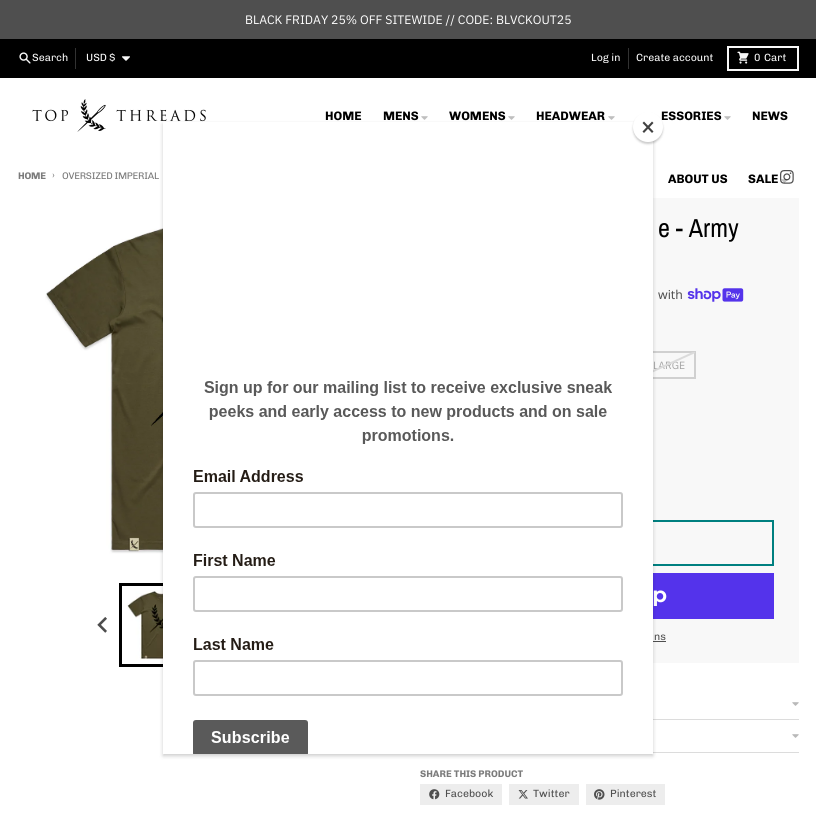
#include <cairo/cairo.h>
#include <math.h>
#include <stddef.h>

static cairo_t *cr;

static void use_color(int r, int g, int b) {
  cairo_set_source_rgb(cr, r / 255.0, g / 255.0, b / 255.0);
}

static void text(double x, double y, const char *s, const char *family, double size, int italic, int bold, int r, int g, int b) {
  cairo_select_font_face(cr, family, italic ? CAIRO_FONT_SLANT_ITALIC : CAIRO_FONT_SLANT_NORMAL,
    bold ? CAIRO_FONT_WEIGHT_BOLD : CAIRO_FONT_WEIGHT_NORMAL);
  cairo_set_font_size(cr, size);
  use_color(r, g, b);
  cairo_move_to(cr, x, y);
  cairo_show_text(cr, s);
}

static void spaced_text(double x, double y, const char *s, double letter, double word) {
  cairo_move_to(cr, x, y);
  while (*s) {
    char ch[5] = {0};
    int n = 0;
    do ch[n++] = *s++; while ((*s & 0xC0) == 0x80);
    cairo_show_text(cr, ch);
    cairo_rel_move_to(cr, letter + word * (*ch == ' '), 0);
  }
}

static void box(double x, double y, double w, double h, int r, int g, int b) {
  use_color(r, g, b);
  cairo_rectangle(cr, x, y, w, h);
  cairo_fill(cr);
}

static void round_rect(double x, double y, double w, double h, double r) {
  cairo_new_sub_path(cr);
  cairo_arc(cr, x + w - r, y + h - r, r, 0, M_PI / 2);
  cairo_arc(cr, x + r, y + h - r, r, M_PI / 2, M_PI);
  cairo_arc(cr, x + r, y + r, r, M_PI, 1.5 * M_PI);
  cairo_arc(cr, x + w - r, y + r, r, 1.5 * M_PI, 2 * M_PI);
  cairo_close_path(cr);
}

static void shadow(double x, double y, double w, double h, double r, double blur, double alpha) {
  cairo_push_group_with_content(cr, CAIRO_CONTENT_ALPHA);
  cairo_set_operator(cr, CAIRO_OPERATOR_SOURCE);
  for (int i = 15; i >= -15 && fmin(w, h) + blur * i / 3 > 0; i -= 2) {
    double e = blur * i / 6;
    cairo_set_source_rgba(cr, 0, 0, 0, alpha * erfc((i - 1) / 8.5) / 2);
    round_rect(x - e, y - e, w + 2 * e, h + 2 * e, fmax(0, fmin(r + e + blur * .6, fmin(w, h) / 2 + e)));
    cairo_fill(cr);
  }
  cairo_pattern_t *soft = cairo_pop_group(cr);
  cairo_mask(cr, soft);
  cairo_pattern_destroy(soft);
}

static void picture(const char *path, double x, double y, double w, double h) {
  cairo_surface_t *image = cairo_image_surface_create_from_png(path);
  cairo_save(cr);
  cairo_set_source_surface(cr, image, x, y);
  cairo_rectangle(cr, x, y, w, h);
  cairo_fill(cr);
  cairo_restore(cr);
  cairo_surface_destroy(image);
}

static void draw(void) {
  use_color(0, 0, 0);
  cairo_paint(cr);
  box(0, 0, 816, 39, 79, 79, 79);
  picture("img_01.png", 19, 52, 12, 12);
  box(75, 48, 1, 21, 50, 50, 50);
  picture("img_02.png", 122, 56, 8, 5);
  box(628, 48, 1, 21, 50, 50, 50);
  cairo_rectangle(cr, 728, 47, 70, 23);
  use_color(248, 248, 248);
  cairo_stroke(cr);
  picture("img_03.png", 737, 51, 12, 13);
  box(0, 78, 816, 736, 255, 255, 255);
  use_color(0, 0, 0);
  shadow(633, 114, 30, 30, 15, 1, 0.2);
  picture("img_05.png", 32, 99, 174, 33);
  picture("img_06.png", 421, 116, 7, 4);
  picture("img_06.png", 508, 116, 7, 4);
  picture("img_06.png", 608, 116, 7, 4);
  picture("img_06.png", 724, 116, 7, 4);
  picture("img_08.png", 780, 170, 14, 14);
  picture("img_07.png", 781, 179, 7, 4);
  picture("img_09.png", 45, 223, 118, 331);
  picture("img_10.png", 97, 617, 10, 16);
  cairo_rectangle(cr, 120.5, 584.5, 81, 81);
  use_color(0, 0, 0);
  cairo_set_line_width(cr, 3);
  cairo_stroke(cr);
  picture("img_11.png", 127, 590, 36, 71);
  box(653, 198, 146, 465, 248, 248, 248);
  picture("img_12.png", 687, 288, 57, 14);
  cairo_rectangle(cr, 637, 352, 58, 26);
  use_color(208, 208, 208);
  cairo_set_line_width(cr, 2);
  cairo_stroke(cr);
  cairo_rectangle(cr, 446, 521, 327, 44);
  use_color(0, 128, 128);
  cairo_stroke(cr);
  box(653, 573, 121, 46, 84, 51, 235);
  picture("img_13.png", 653, 590, 14, 16);
  box(653, 641, 13, 1, 79, 79, 79);
  box(653, 719, 146, 1, 220, 220, 220);
  picture("img_14.png", 792, 702, 7, 4);
  box(653, 752, 146, 1, 220, 220, 220);
  picture("img_14.png", 792, 734, 7, 4);
  box(420, 784, 82, 21, 237, 237, 237);
  picture("img_15.png", 429, 789, 11, 11);
  box(509, 784, 70, 21, 237, 237, 237);
  picture("img_16.png", 518, 790, 10, 9);
  box(586, 784, 79, 21, 237, 237, 237);
  picture("img_17.png", 594, 789, 11, 11);
  text(245, 24, "BLACK FRIDAY 25% OFF SITEWIDE // CODE: BLVCKOUT25", "IBM Plex Sans", 12.25, 0, 0, 255, 255, 255);
  text(32, 61, "Search", "Chivo", 10.5, 0, 0, 248, 248, 248);
  text(86, 61, "USD $", "Chivo", 10.5, 0, 0, 248, 248, 248);
  text(591, 61, "Log in", "Chivo", 10.5, 0, 0, 248, 248, 248);
  text(636, 61, "Create account", "Chivo", 10.5, 0, 0, 248, 248, 248);
  text(754, 61, "0", "Chivo", 10.5, 0, 0, 248, 248, 248);
  text(764, 61, "Cart", "Chivo", 10.5, 0, 0, 248, 248, 248);
  text(325, 120, "HOME", "Chivo", 12.25, 0, 1, 0, 0, 0);
  text(383, 120, "MENS", "Chivo", 12.25, 0, 1, 0, 0, 0);
  text(449, 120, "WOMENS", "Chivo", 12.25, 0, 1, 0, 0, 0);
  text(536, 120, "HEADWEAR", "Chivo", 12.25, 0, 1, 0, 0, 0);
  text(661, 120, "ESSORIES", "Chivo", 12.25, 0, 1, 0, 0, 0);
  text(752, 120, "NEWS", "Chivo", 12.25, 0, 1, 0, 0, 0);
  text(668, 183, "ABOUT US", "Chivo", 12.25, 0, 1, 0, 0, 0);
  text(748, 183, "SALE", "Chivo", 12.25, 0, 1, 0, 0, 0);
  cairo_set_font_size(cr, 9.6);
  use_color(123, 123, 123);
  spaced_text(18, 179, "HOME", -0.25, 0);
  cairo_select_font_face(cr, "Chivo", CAIRO_FONT_SLANT_NORMAL, CAIRO_FONT_WEIGHT_NORMAL);
  cairo_set_font_size(cr, 10.5);
  spaced_text(52, 179, "›", -0.25, 0);
  cairo_set_font_size(cr, 9.6);
  spaced_text(62, 179, "OVERSIZED IMPERIAL", -0.25, 0);
  text(658, 237, "e - Army", "Archivo Narrow", 26, 0, 0, 0, 0, 0);
  text(658, 299, "with", "Noto Sans", 12.25, 0, 0, 79, 79, 79);
  text(653, 369, "LARGE", "IBM Plex Sans", 10.5, 0, 0, 164, 164, 164);
  cairo_save(cr);
  cairo_rectangle(cr, 637, 352, 58, 26);
  cairo_clip(cr);
  cairo_new_path(cr);
  cairo_move_to(cr, 637, 378.5);
  cairo_line_to(cr, 695, 352);
  use_color(219, 219, 219);
  cairo_stroke(cr);
  cairo_restore(cr);
  cairo_save(cr);
  cairo_set_fill_rule(cr, CAIRO_FILL_RULE_EVEN_ODD);
  cairo_new_path(cr);
  cairo_move_to(cr, 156, 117);
  cairo_line_to(cr, 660, 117);
  cairo_line_to(cr, 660, 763);
  cairo_line_to(cr, 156, 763);
  cairo_close_path(cr);
  cairo_move_to(cr, 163, 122);
  cairo_line_to(cr, 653, 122);
  cairo_line_to(cr, 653, 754);
  cairo_line_to(cr, 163, 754);
  cairo_close_path(cr);
  cairo_clip(cr);
  use_color(0, 0, 0);
  shadow(163, 124, 490, 632, 0, 2, 0.2);
  cairo_restore(cr);
  use_color(255, 255, 255);
  cairo_arc(cr, 648, 127, 15, 0, 2 * M_PI);
  cairo_fill(cr);
  use_color(65, 65, 65);
  cairo_new_path(cr);
  cairo_move_to(cr, 652, 121.5);
  cairo_line_to(cr, 653.5, 123);
  cairo_line_to(cr, 644, 133);
  cairo_line_to(cr, 642.5, 131.5);
  cairo_close_path(cr);
  cairo_fill(cr);
  cairo_new_path(cr);
  cairo_move_to(cr, 642.5, 123);
  cairo_line_to(cr, 644, 121.5);
  cairo_line_to(cr, 653.5, 131.5);
  cairo_line_to(cr, 652, 133);
  cairo_close_path(cr);
  cairo_fill(cr);
  picture("img_04.png", 163, 172, 490, 582);
  text(654, 640, "ns", "Chivo", 10.5, 0, 0, 79, 79, 79);
  text(420, 777, "SHARE THIS PRODUCT", "Chivo", 9.6, 0, 1, 123, 123, 123);
  text(445, 797, "Facebook", "Chivo", 10.5, 0, 0, 79, 79, 79);
  text(533, 797, "Twitter", "Chivo", 10.5, 0, 0, 79, 79, 79);
  text(610, 797, "Pinterest", "Chivo", 10.5, 0, 0, 79, 79, 79);
}

int main(void) {
  cairo_surface_t *surface = cairo_image_surface_create(CAIRO_FORMAT_RGB24, 816, 814);
  cr = cairo_create(surface);
  cairo_font_options_t *options = cairo_font_options_create();
  cairo_font_options_set_hint_metrics(options, CAIRO_HINT_METRICS_OFF);
  cairo_font_options_set_hint_style(options, CAIRO_HINT_STYLE_NONE);
  cairo_set_font_options(cr, options);
  cairo_set_miter_limit(cr, 4);
  draw();
  cairo_surface_write_to_png(surface, "out.png");
  cairo_font_options_destroy(options);
  cairo_destroy(cr);
  cairo_surface_destroy(surface);
  return 0;
}
